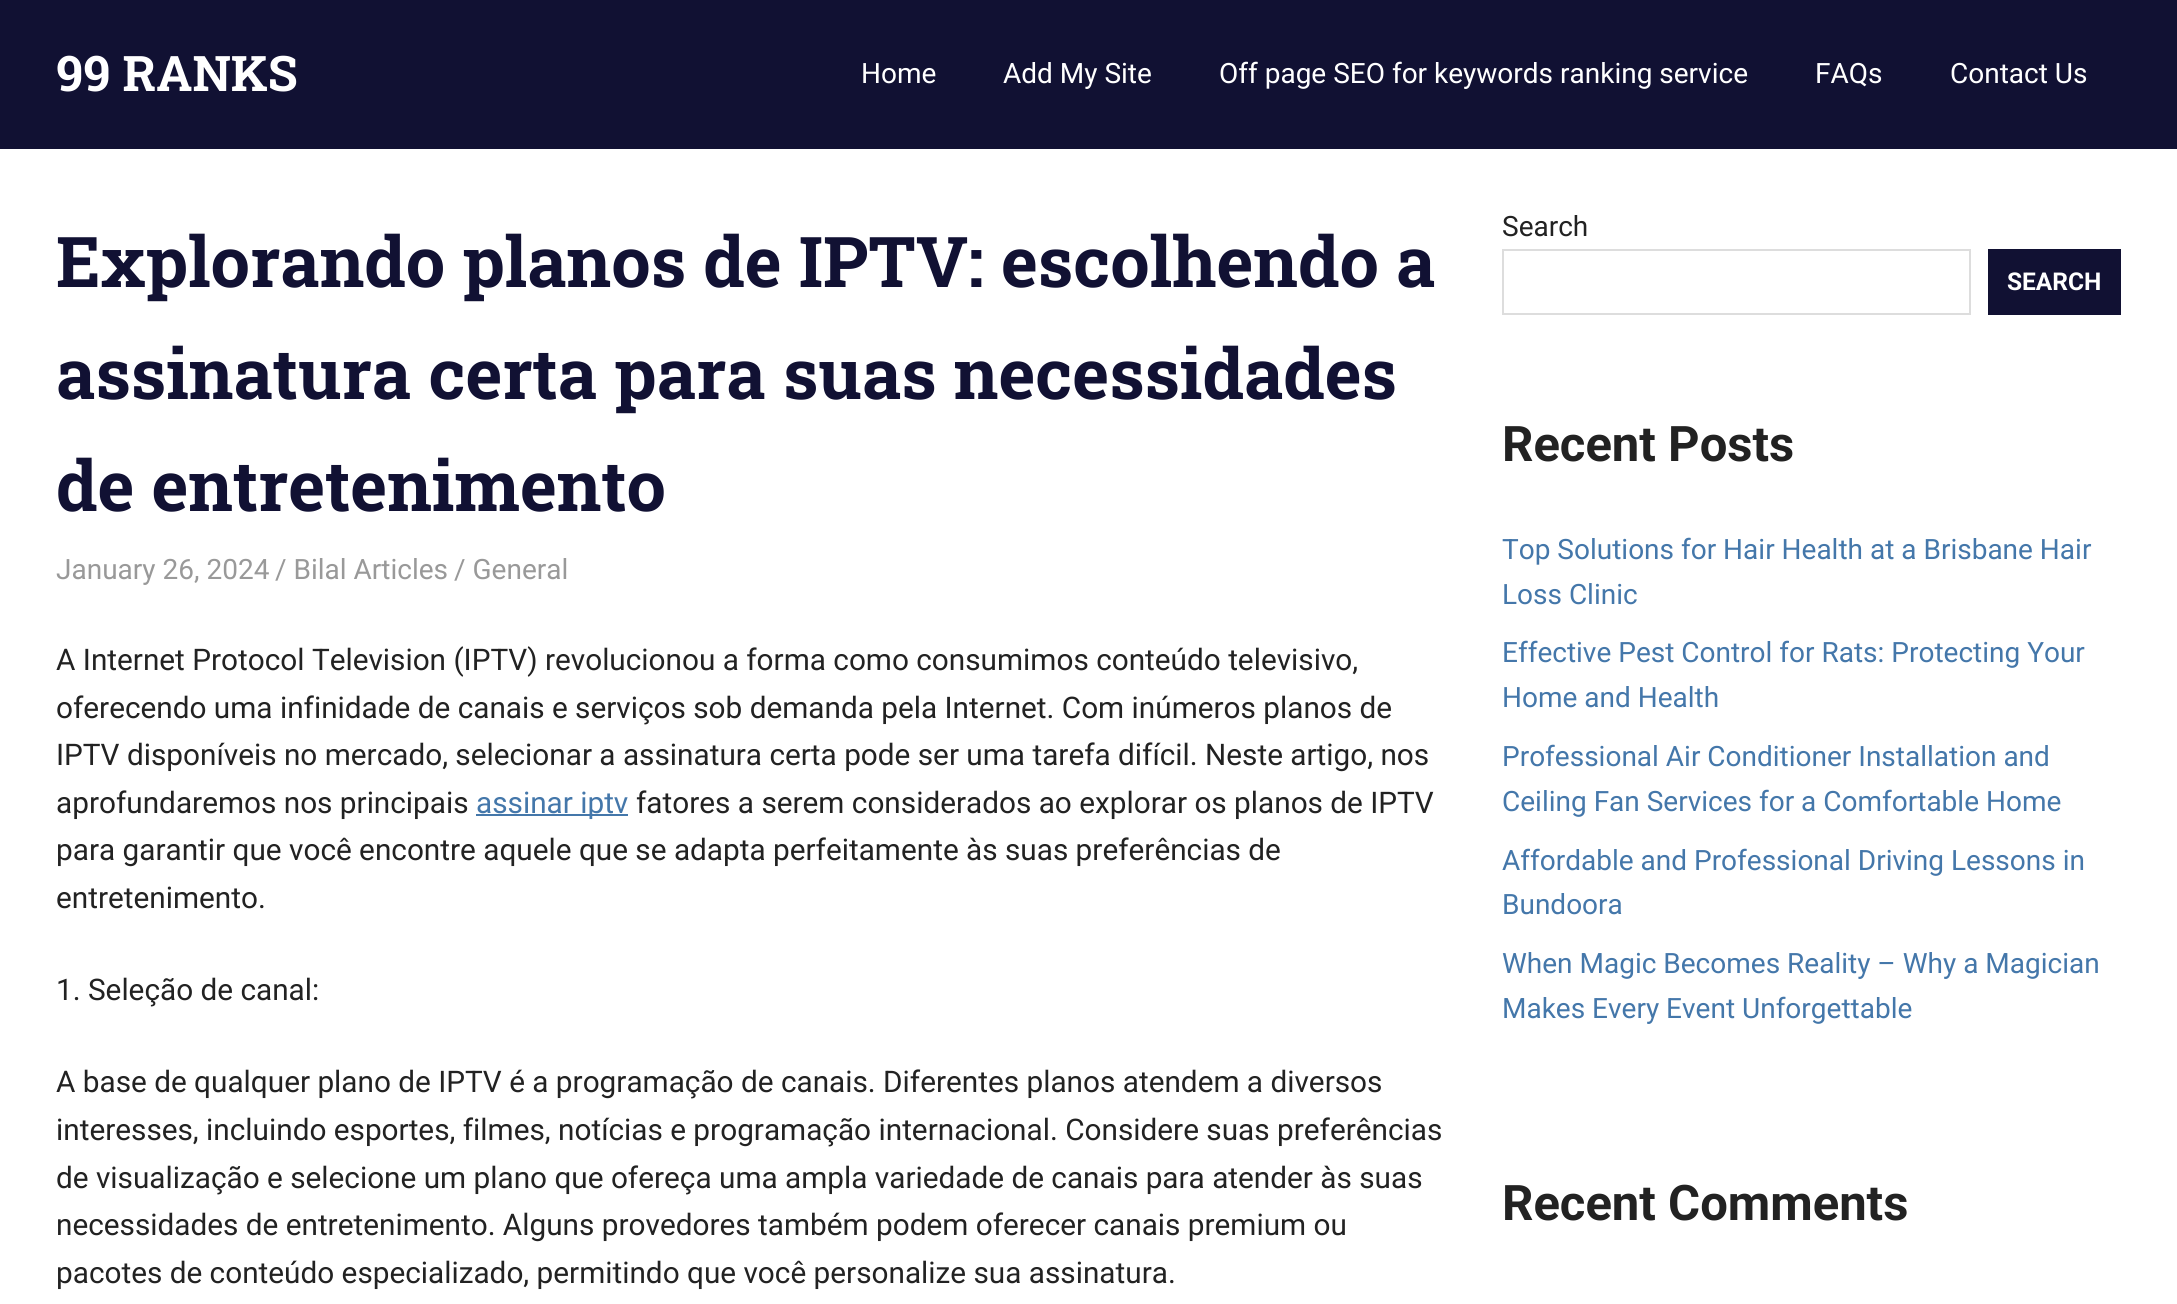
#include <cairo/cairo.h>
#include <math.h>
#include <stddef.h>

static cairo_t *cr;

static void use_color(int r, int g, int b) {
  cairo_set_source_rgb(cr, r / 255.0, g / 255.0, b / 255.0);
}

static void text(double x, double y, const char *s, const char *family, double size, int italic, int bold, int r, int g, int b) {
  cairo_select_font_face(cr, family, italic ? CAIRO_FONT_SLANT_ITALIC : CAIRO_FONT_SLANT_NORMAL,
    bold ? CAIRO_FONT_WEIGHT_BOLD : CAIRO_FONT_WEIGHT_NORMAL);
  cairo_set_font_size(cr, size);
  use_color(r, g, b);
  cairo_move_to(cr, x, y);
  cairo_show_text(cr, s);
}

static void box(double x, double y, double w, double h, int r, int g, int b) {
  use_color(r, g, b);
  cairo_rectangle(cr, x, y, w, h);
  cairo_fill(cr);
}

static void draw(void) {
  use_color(255, 255, 255);
  cairo_paint(cr);
  box(0, 0, 2177, 149, 17, 17, 51);
  box(476, 814, 152, 2, 68, 119, 170);
  cairo_rectangle(cr, 1503, 250, 467, 64);
  use_color(221, 221, 221);
  cairo_stroke(cr);
  box(1988, 249, 133, 66, 17, 17, 51);
  text(56, 91, "99 RANKS", "Roboto Slab", 49, 0, 1, 255, 255, 255);
  text(861, 83, "Home", "Roboto", 28, 0, 0, 255, 255, 255);
  text(1003, 83, "Add My Site", "Roboto", 28, 0, 0, 255, 255, 255);
  text(1219, 83, "Off page SEO for keywords ranking service", "Roboto", 28, 0, 0, 255, 255, 255);
  text(1815, 83, "FAQs", "Roboto", 28, 0, 0, 255, 255, 255);
  text(1950, 83, "Contact Us", "Roboto", 28, 0, 0, 255, 255, 255);
  text(56, 287, "Explorando planos de IPTV: escolhendo a", "Roboto Slab", 70, 0, 1, 17, 17, 51);
  text(56, 399, "assinatura certa para suas necessidades", "Roboto Slab", 70, 0, 1, 17, 17, 51);
  text(56, 511, "de entretenimento", "Roboto Slab", 70, 0, 1, 17, 17, 51);
  text(56, 579, "January 26, 2024", "Roboto", 28, 0, 0, 153, 153, 153);
  text(275, 579, "/ Bilal Articles", "Roboto", 28, 0, 0, 153, 153, 153);
  text(454, 579, "/ General", "Roboto", 28, 0, 0, 153, 153, 153);
  text(56, 670, "A Internet Protocol Television (IPTV) revolucionou a forma como consumimos conteúdo televisivo,", "Roboto", 29.75, 0, 0, 34, 34, 34);
  text(56, 718, "oferecendo uma infinidade de canais e serviços sob demanda pela Internet. Com inúmeros planos de", "Roboto", 29.75, 0, 0, 34, 34, 34);
  text(56, 765, "IPTV disponíveis no mercado, selecionar a assinatura certa pode ser uma tarefa difícil. Neste artigo, nos", "Roboto", 29.75, 0, 0, 34, 34, 34);
  text(56, 813, "aprofundaremos nos principais", "Roboto", 29.75, 0, 0, 34, 34, 34);
  text(476, 813, "assinar iptv", "Roboto", 29.75, 0, 0, 68, 119, 170);
  text(636, 813, "fatores a serem considerados ao explorar os planos de IPTV", "Roboto", 29.75, 0, 0, 34, 34, 34);
  text(56, 860, "para garantir que você encontre aquele que se adapta perfeitamente às suas preferências de", "Roboto", 29.75, 0, 0, 34, 34, 34);
  text(56, 908, "entretenimento.", "Roboto", 29.75, 0, 0, 34, 34, 34);
  text(56, 1000, "1. Seleção de canal:", "Roboto", 29.75, 0, 0, 34, 34, 34);
  text(56, 1092, "A base de qualquer plano de IPTV é a programação de canais. Diferentes planos atendem a diversos", "Roboto", 29.75, 0, 0, 34, 34, 34);
  text(56, 1140, "interesses, incluindo esportes, filmes, notícias e programação internacional. Considere suas preferências", "Roboto", 29.75, 0, 0, 34, 34, 34);
  text(56, 1188, "de visualização e selecione um plano que ofereça uma ampla variedade de canais para atender às suas", "Roboto", 29.75, 0, 0, 34, 34, 34);
  text(56, 1235, "necessidades de entretenimento. Alguns provedores também podem oferecer canais premium ou", "Roboto", 29.75, 0, 0, 34, 34, 34);
  text(56, 1283, "pacotes de conteúdo especializado, permitindo que você personalize sua assinatura.", "Roboto", 29.75, 0, 0, 34, 34, 34);
  text(1502, 236, "Search", "Roboto", 28, 0, 0, 34, 34, 34);
  text(2007, 290, "SEARCH", "Roboto", 24.5, 0, 1, 255, 255, 255);
  text(1502, 461, "Recent Posts", "Roboto", 49, 0, 1, 34, 34, 34);
  text(1502, 559, "Top Solutions for Hair Health at a Brisbane Hair", "Roboto", 28, 0, 0, 68, 119, 170);
  text(1502, 604, "Loss Clinic", "Roboto", 28, 0, 0, 68, 119, 170);
  text(1502, 662, "Effective Pest Control for Rats: Protecting Your", "Roboto", 28, 0, 0, 68, 119, 170);
  text(1502, 707, "Home and Health", "Roboto", 28, 0, 0, 68, 119, 170);
  text(1502, 766, "Professional Air Conditioner Installation and", "Roboto", 28, 0, 0, 68, 119, 170);
  text(1502, 811, "Ceiling Fan Services for a Comfortable Home", "Roboto", 28, 0, 0, 68, 119, 170);
  text(1502, 870, "Affordable and Professional Driving Lessons in", "Roboto", 28, 0, 0, 68, 119, 170);
  text(1502, 914, "Bundoora", "Roboto", 28, 0, 0, 68, 119, 170);
  text(1502, 973, "When Magic Becomes Reality – Why a Magician", "Roboto", 28, 0, 0, 68, 119, 170);
  text(1502, 1018, "Makes Every Event Unforgettable", "Roboto", 28, 0, 0, 68, 119, 170);
  text(1502, 1220, "Recent Comments", "Roboto", 49, 0, 1, 34, 34, 34);
}

int main(void) {
  cairo_surface_t *surface = cairo_image_surface_create(CAIRO_FORMAT_RGB24, 2177, 1304);
  cr = cairo_create(surface);
  cairo_font_options_t *options = cairo_font_options_create();
  cairo_font_options_set_hint_metrics(options, CAIRO_HINT_METRICS_OFF);
  cairo_font_options_set_hint_style(options, CAIRO_HINT_STYLE_NONE);
  cairo_set_font_options(cr, options);
  cairo_set_miter_limit(cr, 4);
  draw();
  cairo_surface_write_to_png(surface, "out.png");
  cairo_font_options_destroy(options);
  cairo_destroy(cr);
  cairo_surface_destroy(surface);
  return 0;
}
